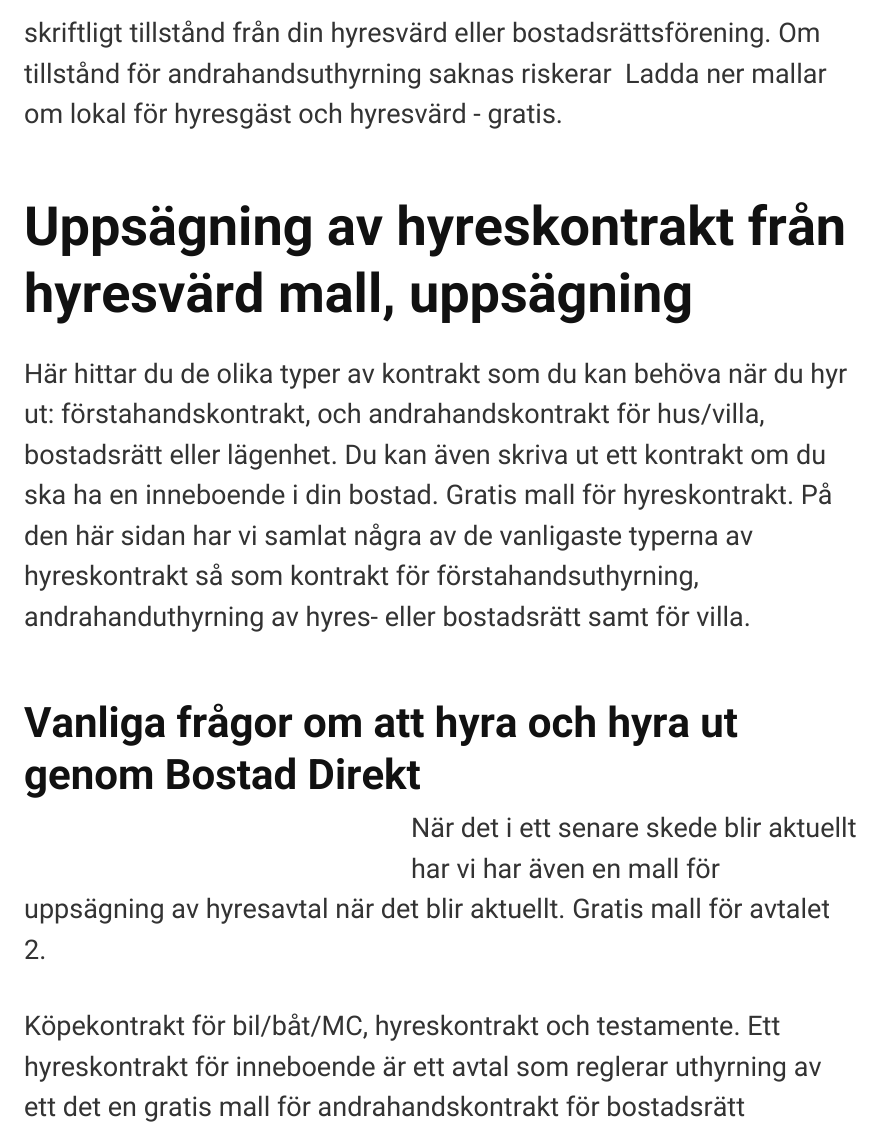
#include <cairo/cairo.h>
#include <math.h>
#include <stddef.h>

static cairo_t *cr;

static void use_color(int r, int g, int b) {
  cairo_set_source_rgb(cr, r / 255.0, g / 255.0, b / 255.0);
}

static void text(double x, double y, const char *s, const char *family, double size, int italic, int bold, int r, int g, int b) {
  cairo_select_font_face(cr, family, italic ? CAIRO_FONT_SLANT_ITALIC : CAIRO_FONT_SLANT_NORMAL,
    bold ? CAIRO_FONT_WEIGHT_BOLD : CAIRO_FONT_WEIGHT_NORMAL);
  cairo_set_font_size(cr, size);
  use_color(r, g, b);
  cairo_move_to(cr, x, y);
  cairo_show_text(cr, s);
}

static void draw(void) {
  use_color(255, 255, 255);
  cairo_paint(cr);
  text(24, 42, "skriftligt tillstånd från din hyresvärd eller bostadsrättsförening. Om", "Roboto", 27, 0, 0, 51, 51, 51);
  text(24, 83, "tillstånd för andrahandsuthyrning saknas riskerar  Ladda ner mallar", "Roboto", 27, 0, 0, 51, 51, 51);
  text(24, 123, "om lokal för hyresgäst och hyresvärd - gratis.", "Roboto", 27, 0, 0, 51, 51, 51);
  text(24, 245, "Uppsägning av hyreskontrakt från", "Roboto", 54, 0, 1, 17, 17, 17);
  text(24, 312, "hyresvärd mall, uppsägning", "Roboto", 54, 0, 1, 17, 17, 17);
  text(24, 383, "Här hittar du de olika typer av kontrakt som du kan behöva när du hyr", "Roboto", 27, 0, 0, 51, 51, 51);
  text(24, 423, "ut: förstahandskontrakt, och andrahandskontrakt för hus/villa,", "Roboto", 27, 0, 0, 51, 51, 51);
  text(24, 464, "bostadsrätt eller lägenhet. Du kan även skriva ut ett kontrakt om du", "Roboto", 27, 0, 0, 51, 51, 51);
  text(24, 504, "ska ha en inneboende i din bostad. Gratis mall för hyreskontrakt. På", "Roboto", 27, 0, 0, 51, 51, 51);
  text(24, 545, "den här sidan har vi samlat några av de vanligaste typerna av", "Roboto", 27, 0, 0, 51, 51, 51);
  text(24, 585, "hyreskontrakt så som kontrakt för förstahandsuthyrning,", "Roboto", 27, 0, 0, 51, 51, 51);
  text(24, 626, "andrahanduthyrning av hyres- eller bostadsrätt samt för villa.", "Roboto", 27, 0, 0, 51, 51, 51);
  text(24, 737, "Vanliga frågor om att hyra och hyra ut", "Roboto", 42, 0, 1, 17, 17, 17);
  text(24, 789, "genom Bostad Direkt", "Roboto", 42, 0, 1, 17, 17, 17);
  text(411, 837, "När det i ett senare skede blir aktuellt", "Roboto", 27, 0, 0, 51, 51, 51);
  text(411, 878, "har vi har även en mall för", "Roboto", 27, 0, 0, 51, 51, 51);
  text(24, 918, "uppsägning av hyresavtal när det blir aktuellt. Gratis mall för avtalet", "Roboto", 27, 0, 0, 51, 51, 51);
  text(24, 959, "2.", "Roboto", 27, 0, 0, 51, 51, 51);
  text(24, 1035, "Köpekontrakt för bil/båt/MC, hyreskontrakt och testamente. Ett", "Roboto", 27, 0, 0, 51, 51, 51);
  text(24, 1076, "hyreskontrakt för inneboende är ett avtal som reglerar uthyrning av", "Roboto", 27, 0, 0, 51, 51, 51);
  text(24, 1116, "ett det en gratis mall för andrahandskontrakt för bostadsrätt", "Roboto", 27, 0, 0, 51, 51, 51);
}

int main(void) {
  cairo_surface_t *surface = cairo_image_surface_create(CAIRO_FORMAT_RGB24, 882, 1127);
  cr = cairo_create(surface);
  cairo_font_options_t *options = cairo_font_options_create();
  cairo_font_options_set_hint_metrics(options, CAIRO_HINT_METRICS_OFF);
  cairo_font_options_set_hint_style(options, CAIRO_HINT_STYLE_NONE);
  cairo_set_font_options(cr, options);
  cairo_set_miter_limit(cr, 4);
  draw();
  cairo_surface_write_to_png(surface, "out.png");
  cairo_font_options_destroy(options);
  cairo_destroy(cr);
  cairo_surface_destroy(surface);
  return 0;
}
